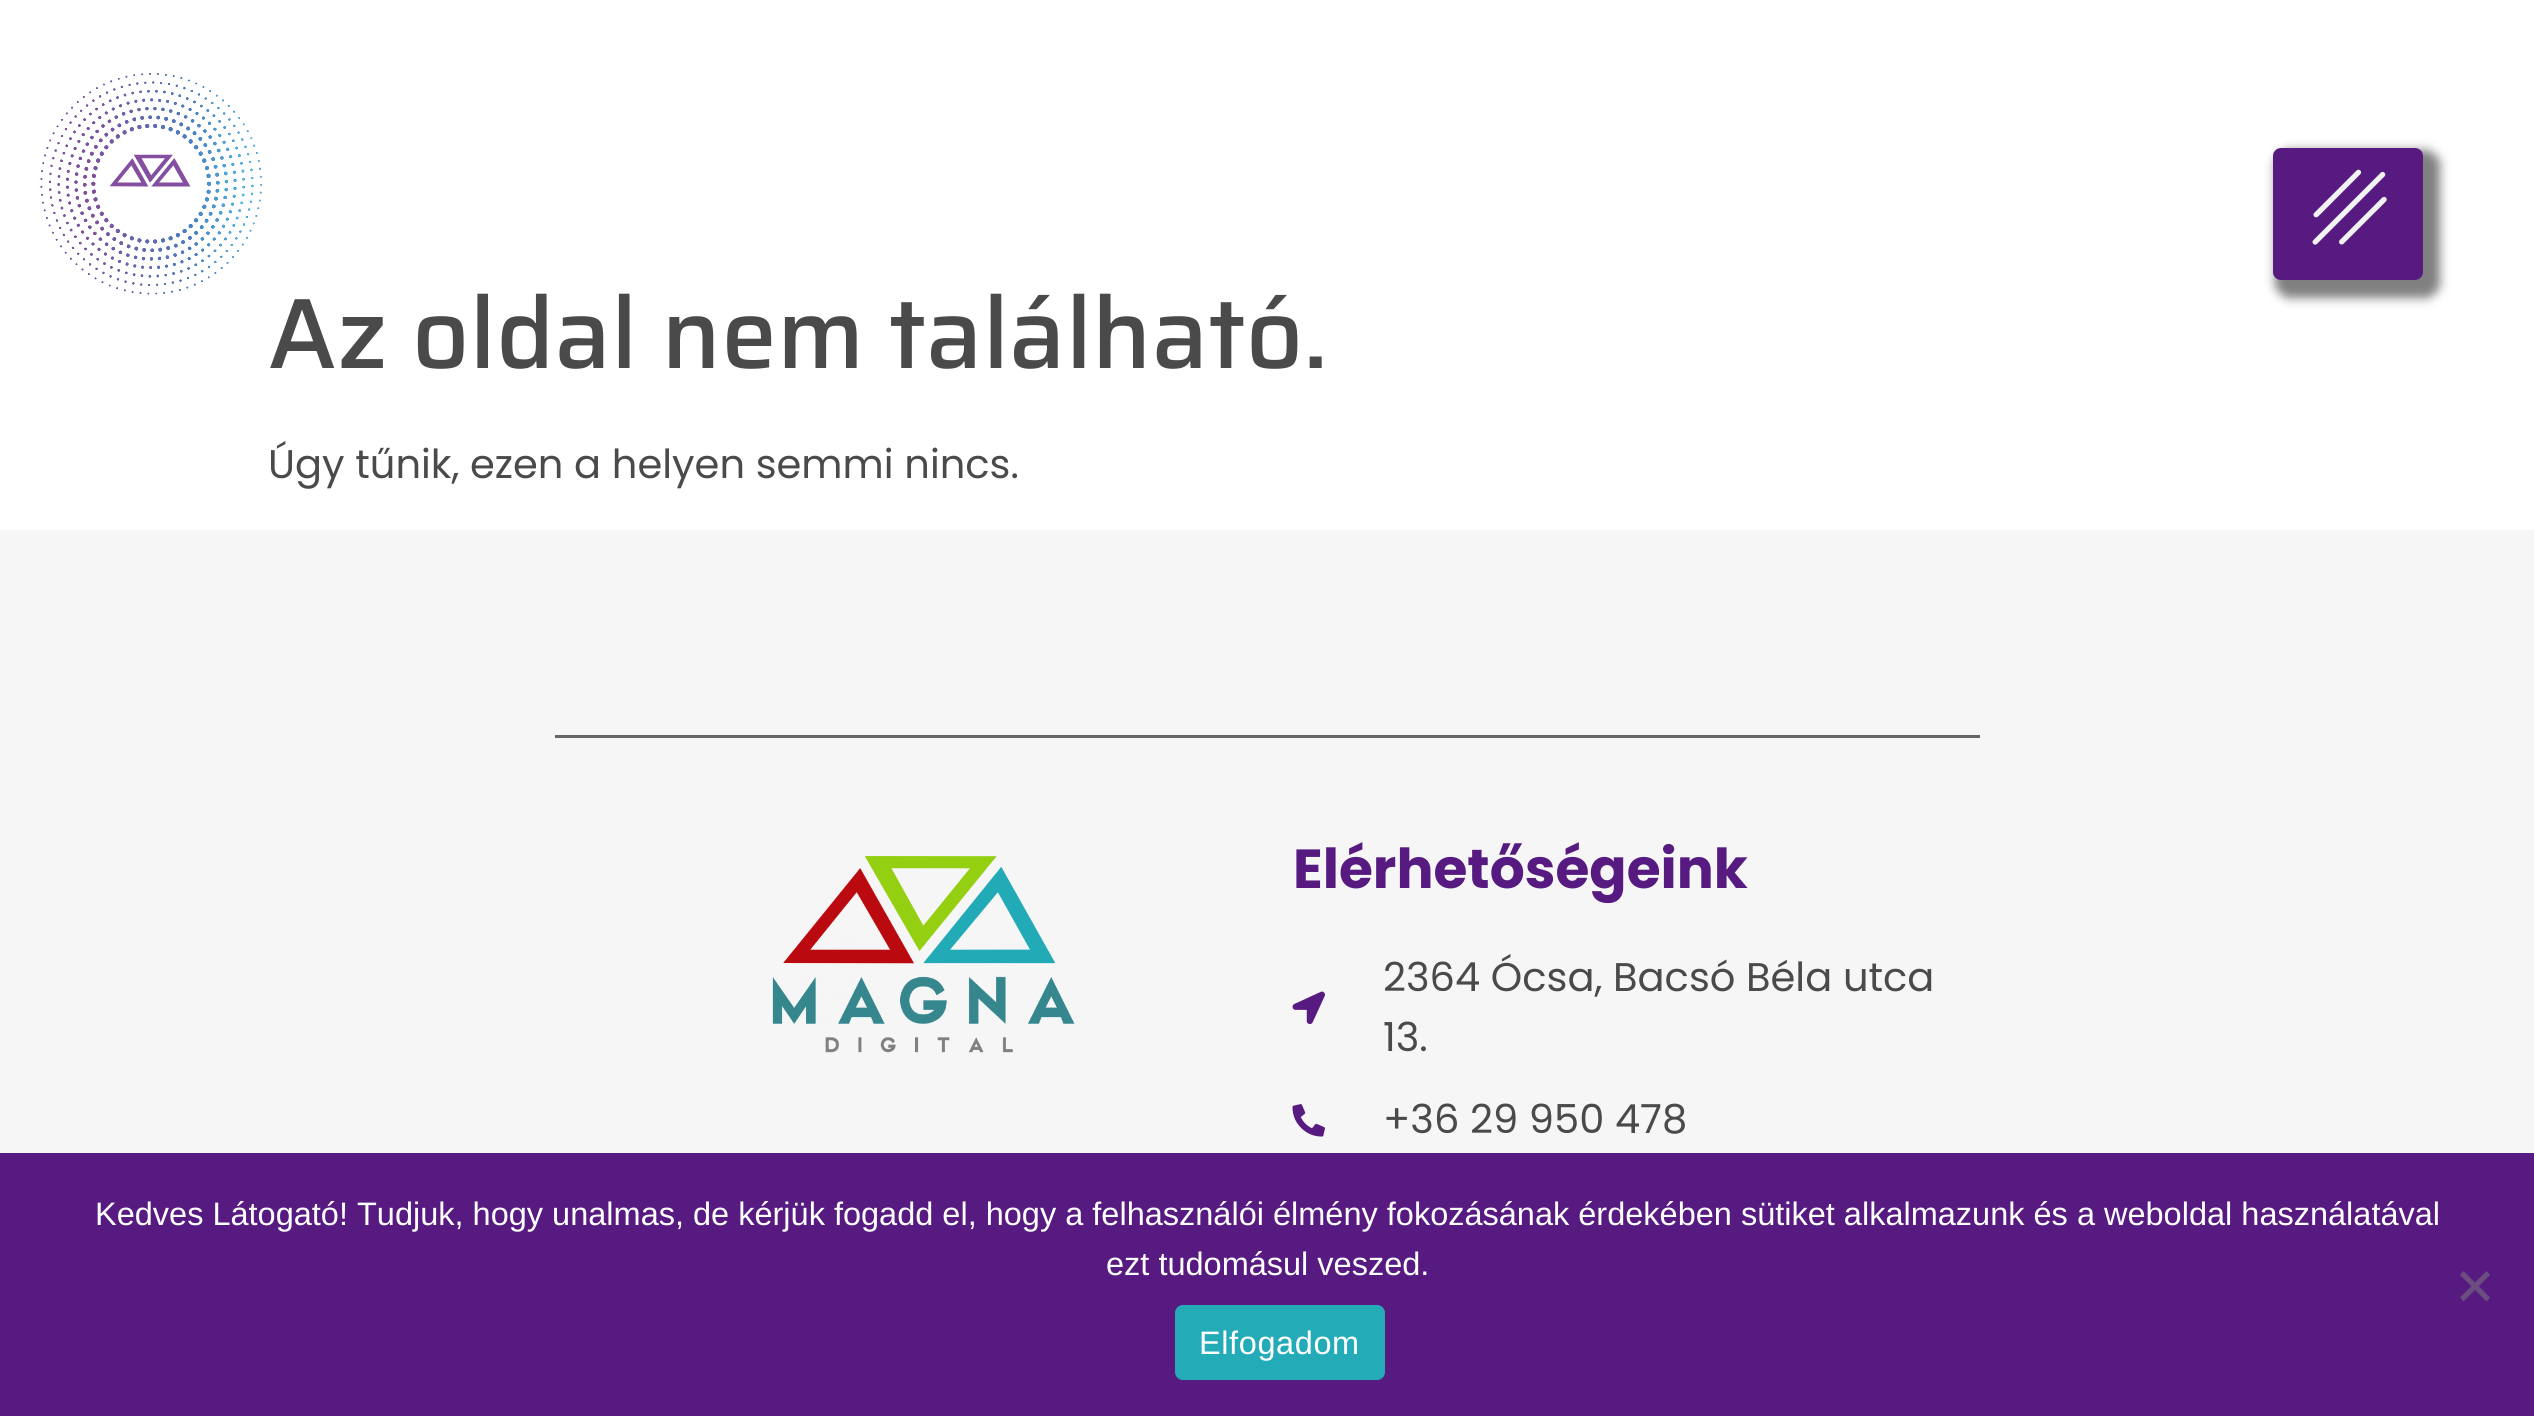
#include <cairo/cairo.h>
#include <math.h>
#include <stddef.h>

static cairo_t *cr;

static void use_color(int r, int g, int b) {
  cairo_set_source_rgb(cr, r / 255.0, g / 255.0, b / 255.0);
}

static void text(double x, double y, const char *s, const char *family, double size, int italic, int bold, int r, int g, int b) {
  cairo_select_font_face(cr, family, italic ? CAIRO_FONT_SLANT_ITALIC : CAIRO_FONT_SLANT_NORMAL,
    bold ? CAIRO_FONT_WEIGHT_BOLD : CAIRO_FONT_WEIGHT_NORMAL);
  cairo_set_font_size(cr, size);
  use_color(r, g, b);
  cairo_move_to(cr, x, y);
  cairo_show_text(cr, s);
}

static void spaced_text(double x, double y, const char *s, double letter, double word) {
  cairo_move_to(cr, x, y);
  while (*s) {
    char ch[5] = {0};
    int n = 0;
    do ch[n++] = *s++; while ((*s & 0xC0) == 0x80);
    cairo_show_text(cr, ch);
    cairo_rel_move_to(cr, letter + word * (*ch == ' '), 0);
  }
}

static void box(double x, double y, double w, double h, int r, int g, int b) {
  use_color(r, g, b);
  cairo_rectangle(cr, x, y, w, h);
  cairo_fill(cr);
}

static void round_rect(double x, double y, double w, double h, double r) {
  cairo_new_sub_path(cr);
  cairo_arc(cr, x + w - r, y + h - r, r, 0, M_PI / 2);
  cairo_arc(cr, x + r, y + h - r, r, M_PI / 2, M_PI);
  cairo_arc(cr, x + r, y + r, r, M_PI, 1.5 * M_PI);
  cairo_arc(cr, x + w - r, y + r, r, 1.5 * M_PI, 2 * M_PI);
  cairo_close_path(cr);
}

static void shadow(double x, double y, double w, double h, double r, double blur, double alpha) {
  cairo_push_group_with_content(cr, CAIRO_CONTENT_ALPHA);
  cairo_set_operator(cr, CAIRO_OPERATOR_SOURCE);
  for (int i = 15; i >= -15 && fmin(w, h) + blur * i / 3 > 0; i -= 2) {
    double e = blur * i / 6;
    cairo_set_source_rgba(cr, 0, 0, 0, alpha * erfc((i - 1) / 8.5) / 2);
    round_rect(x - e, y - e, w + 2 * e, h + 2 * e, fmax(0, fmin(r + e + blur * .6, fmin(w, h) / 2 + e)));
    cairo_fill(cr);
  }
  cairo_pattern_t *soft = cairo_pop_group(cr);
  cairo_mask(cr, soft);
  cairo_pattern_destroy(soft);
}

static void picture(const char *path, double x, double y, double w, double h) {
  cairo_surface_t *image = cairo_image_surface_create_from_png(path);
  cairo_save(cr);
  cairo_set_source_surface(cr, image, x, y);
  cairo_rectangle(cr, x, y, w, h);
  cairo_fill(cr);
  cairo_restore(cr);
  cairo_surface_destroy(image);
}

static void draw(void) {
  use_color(255, 255, 255);
  cairo_paint(cr);
  picture("img_01.png", 40, 73, 222, 222);
  use_color(0, 0, 0);
  shadow(2275, 150, 165, 148, 15, 5, 0.5);
  use_color(87, 26, 129);
  round_rect(2273, 148, 150, 132, 8);
  cairo_fill(cr);
  picture("img_02.png", 2312, 169, 75, 76);
  box(0, 530, 2534, 623, 246, 246, 246);
  box(555, 735, 1425, 3, 101, 101, 101);
  picture("img_03.png", 772, 856, 303, 197);
  picture("img_04.png", 1292, 991, 34, 33);
  picture("img_05.png", 1292, 1104, 33, 33);
  box(0, 1153, 2534, 263, 87, 26, 129);
  use_color(108, 77, 129);
  cairo_new_path(cr);
  cairo_move_to(cr, 2486.5, 1271);
  cairo_line_to(cr, 2490, 1275);
  cairo_line_to(cr, 2463.5, 1301.5);
  cairo_line_to(cr, 2460, 1297.5);
  cairo_close_path(cr);
  cairo_fill(cr);
  cairo_new_path(cr);
  cairo_move_to(cr, 2460, 1275);
  cairo_line_to(cr, 2463.5, 1271);
  cairo_line_to(cr, 2490, 1297.5);
  cairo_line_to(cr, 2486.5, 1301.5);
  cairo_close_path(cr);
  cairo_fill(cr);
  use_color(35, 172, 184);
  round_rect(1175, 1305, 210, 75, 8);
  cairo_fill(cr);
  text(268, 368, "Az oldal nem található.", "Saira Medium", 100, 0, 0, 74, 74, 74);
  text(268, 478, "Úgy tűnik, ezen a helyen semmi nincs.", "Poppins", 40, 0, 0, 74, 74, 74);
  text(1293, 888, "Elérhetőségeink", "Poppins", 55, 0, 1, 87, 26, 129);
  text(1383, 991, "2364 Ócsa, Bacsó Béla utca", "Poppins", 40, 0, 0, 74, 74, 74);
  text(1383, 1051, "13.", "Poppins", 40, 0, 0, 74, 74, 74);
  text(1383, 1133, "+36 29 950 478", "Poppins", 40, 0, 0, 74, 74, 74);
  text(95, 1225, "Kedves Látogató! Tudjuk, hogy unalmas, de kérjük fogadd el, hogy a felhasználói élmény fokozásának érdekében sütiket alkalmazunk és a weboldal használatával", "Liberation Sans", 32.5, 0, 0, 255, 255, 255);
  text(1106, 1275, "ezt tudomásul veszed.", "Liberation Sans", 32.5, 0, 0, 255, 255, 255);
  spaced_text(1199, 1354, "Elfogadom", 0.6, 0);
}

int main(void) {
  cairo_surface_t *surface = cairo_image_surface_create(CAIRO_FORMAT_RGB24, 2534, 1416);
  cr = cairo_create(surface);
  cairo_font_options_t *options = cairo_font_options_create();
  cairo_font_options_set_hint_metrics(options, CAIRO_HINT_METRICS_OFF);
  cairo_font_options_set_hint_style(options, CAIRO_HINT_STYLE_NONE);
  cairo_set_font_options(cr, options);
  cairo_set_miter_limit(cr, 4);
  draw();
  cairo_surface_write_to_png(surface, "out.png");
  cairo_font_options_destroy(options);
  cairo_destroy(cr);
  cairo_surface_destroy(surface);
  return 0;
}
